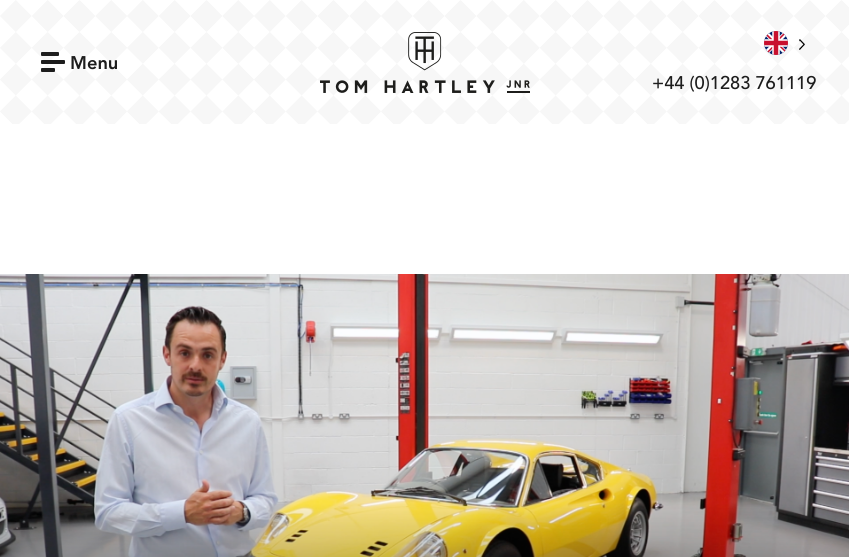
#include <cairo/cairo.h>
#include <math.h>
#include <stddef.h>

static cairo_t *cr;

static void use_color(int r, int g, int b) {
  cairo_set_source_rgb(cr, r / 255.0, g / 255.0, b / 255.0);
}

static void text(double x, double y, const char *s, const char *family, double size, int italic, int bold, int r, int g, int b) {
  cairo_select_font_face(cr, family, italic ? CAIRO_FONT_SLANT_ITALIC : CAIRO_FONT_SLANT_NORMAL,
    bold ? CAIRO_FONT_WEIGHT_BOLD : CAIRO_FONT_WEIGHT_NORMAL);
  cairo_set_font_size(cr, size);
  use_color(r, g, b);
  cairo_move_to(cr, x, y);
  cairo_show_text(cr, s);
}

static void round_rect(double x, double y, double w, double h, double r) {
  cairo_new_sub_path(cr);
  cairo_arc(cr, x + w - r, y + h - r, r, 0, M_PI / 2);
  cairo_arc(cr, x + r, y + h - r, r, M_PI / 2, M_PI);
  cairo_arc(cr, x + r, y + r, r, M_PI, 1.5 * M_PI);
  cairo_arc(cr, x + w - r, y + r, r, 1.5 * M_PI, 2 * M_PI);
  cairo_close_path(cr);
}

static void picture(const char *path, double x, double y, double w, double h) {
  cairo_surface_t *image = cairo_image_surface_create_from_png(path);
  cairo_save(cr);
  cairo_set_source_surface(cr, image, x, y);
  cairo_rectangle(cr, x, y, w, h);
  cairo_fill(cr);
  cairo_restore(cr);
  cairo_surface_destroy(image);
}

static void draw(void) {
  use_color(255, 255, 255);
  cairo_paint(cr);
  picture("img_01.png", 0, 0, 849, 124);
  use_color(29, 29, 29);
  round_rect(41, 60, 24, 4, 1);
  cairo_fill(cr);
  round_rect(41, 52, 18, 4, 1);
  cairo_fill(cr);
  round_rect(41, 68, 14, 4, 1);
  cairo_fill(cr);
  picture("img_02.png", 320, 32, 210, 61);
  picture("img_03.png", 764, 31, 24, 24);
  picture("img_04.png", 799, 39, 6, 11);
  picture("img_05.png", 0, 274, 849, 283);
  text(70, 69, "Menu", "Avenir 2", 18.25, 0, 0, 29, 29, 29);
  text(652, 89, "+44 (0)1283 761119", "Avenir", 18.25, 0, 0, 29, 29, 29);
}

int main(void) {
  cairo_surface_t *surface = cairo_image_surface_create(CAIRO_FORMAT_RGB24, 849, 557);
  cr = cairo_create(surface);
  cairo_font_options_t *options = cairo_font_options_create();
  cairo_font_options_set_hint_metrics(options, CAIRO_HINT_METRICS_OFF);
  cairo_font_options_set_hint_style(options, CAIRO_HINT_STYLE_NONE);
  cairo_set_font_options(cr, options);
  cairo_set_miter_limit(cr, 4);
  draw();
  cairo_surface_write_to_png(surface, "out.png");
  cairo_font_options_destroy(options);
  cairo_destroy(cr);
  cairo_surface_destroy(surface);
  return 0;
}
